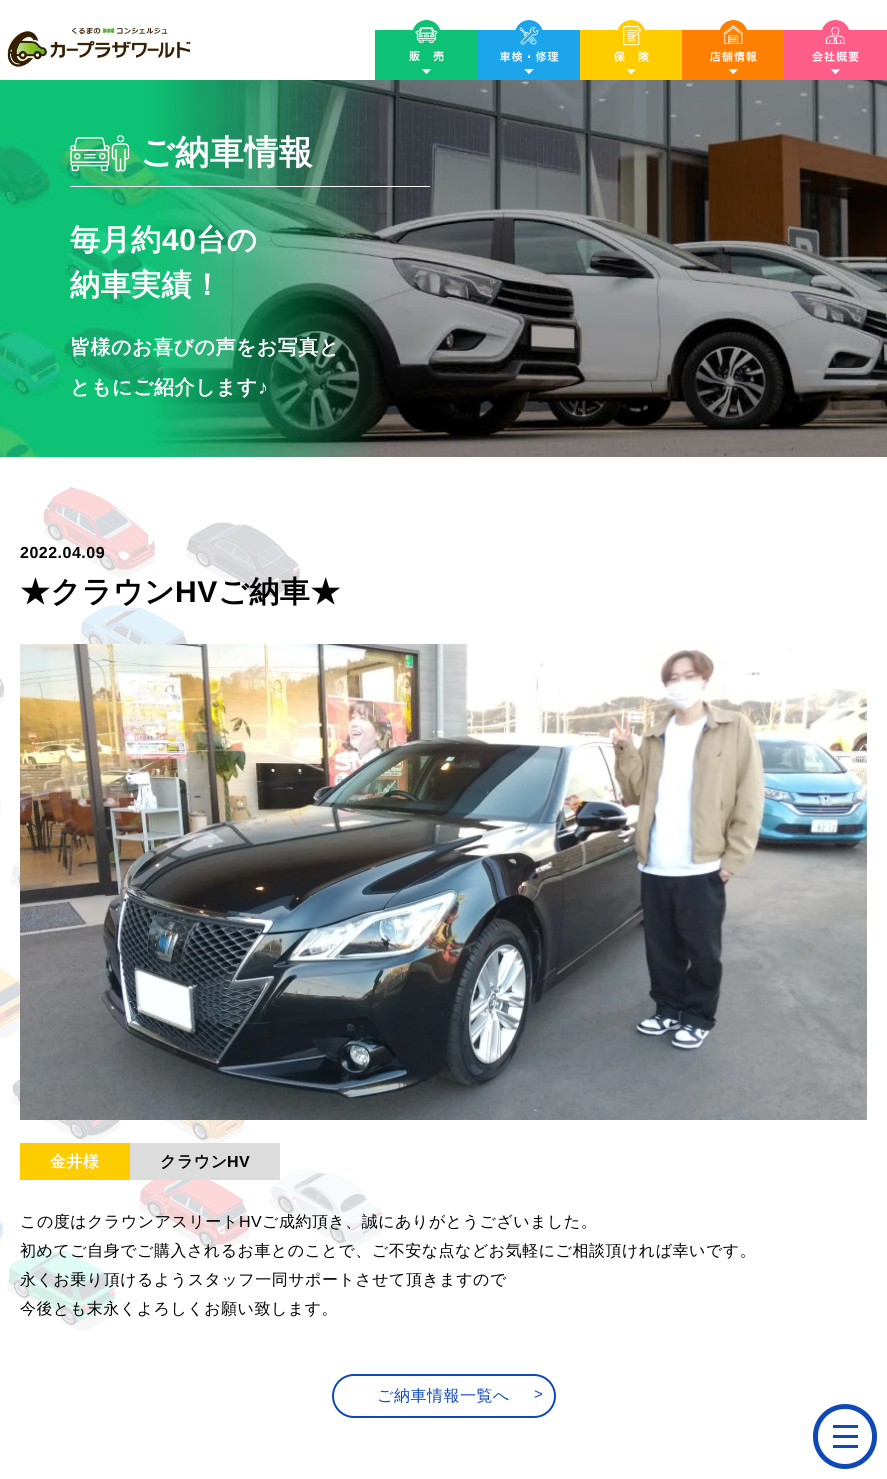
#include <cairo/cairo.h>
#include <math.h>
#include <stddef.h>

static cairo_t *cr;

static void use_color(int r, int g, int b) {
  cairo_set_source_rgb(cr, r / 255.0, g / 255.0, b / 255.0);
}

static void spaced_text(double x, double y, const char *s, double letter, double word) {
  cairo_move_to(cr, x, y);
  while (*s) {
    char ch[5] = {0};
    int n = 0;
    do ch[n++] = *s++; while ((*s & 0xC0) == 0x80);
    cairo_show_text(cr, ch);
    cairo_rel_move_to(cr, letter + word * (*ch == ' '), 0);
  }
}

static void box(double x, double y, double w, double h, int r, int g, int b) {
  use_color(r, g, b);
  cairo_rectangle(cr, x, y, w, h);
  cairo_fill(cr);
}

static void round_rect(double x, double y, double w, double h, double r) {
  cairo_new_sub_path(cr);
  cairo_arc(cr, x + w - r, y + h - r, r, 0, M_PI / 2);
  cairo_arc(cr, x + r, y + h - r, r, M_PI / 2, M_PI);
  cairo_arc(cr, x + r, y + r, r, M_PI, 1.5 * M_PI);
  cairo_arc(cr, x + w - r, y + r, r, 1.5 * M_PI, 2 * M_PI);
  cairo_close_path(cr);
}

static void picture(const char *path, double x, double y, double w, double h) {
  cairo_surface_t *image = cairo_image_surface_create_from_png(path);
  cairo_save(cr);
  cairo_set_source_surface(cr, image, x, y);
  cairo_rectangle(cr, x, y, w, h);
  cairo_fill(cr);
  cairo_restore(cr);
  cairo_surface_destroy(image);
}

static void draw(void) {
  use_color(255, 255, 255);
  cairo_paint(cr);
  picture("img_01.png", 7, 27, 184, 40);
  picture("img_02.png", 375, 20, 103, 60);
  picture("img_03.png", 478, 20, 102, 60);
  picture("img_04.png", 580, 20, 102, 60);
  picture("img_05.png", 682, 20, 102, 60);
  picture("img_06.png", 784, 20, 103, 60);
  picture("img_07.png", 0, 80, 887, 377);
  picture("img_08.png", 70, 135, 60, 37);
  box(70, 186, 360, 1, 255, 255, 255);
  picture("img_09.png", 0, 487, 382, 844);
  picture("img_10.png", 20, 644, 847, 476);
  box(20, 1143, 110, 37, 255, 204, 0);
  box(130, 1143, 150, 37, 220, 220, 220);
  round_rect(333, 1375, 222, 42, 21);
  use_color(15, 73, 183);
  cairo_stroke(cr);
  round_rect(815.5, 1406.5, 59, 60, 29.5);
  cairo_set_line_width(cr, 5);
  cairo_stroke(cr);
  box(833, 1425, 25, 3, 15, 73, 183);
  box(833, 1435, 25, 3, 15, 73, 183);
  box(833, 1445, 25, 3, 15, 73, 183);
  cairo_select_font_face(cr, "WenQuanYi Zen Hei", CAIRO_FONT_SLANT_NORMAL, CAIRO_FONT_WEIGHT_BOLD);
  cairo_set_font_size(cr, 34);
  use_color(255, 255, 255);
  spaced_text(140, 164, "ご納車情報", 0.5, 0);
  cairo_set_font_size(cr, 30);
  spaced_text(70, 250, "毎月約", 0.5, 0);
  cairo_select_font_face(cr, "Liberation Sans", CAIRO_FONT_SLANT_NORMAL, CAIRO_FONT_WEIGHT_BOLD);
  spaced_text(162, 250, "40", 0.5, 0);
  cairo_select_font_face(cr, "WenQuanYi Zen Hei", CAIRO_FONT_SLANT_NORMAL, CAIRO_FONT_WEIGHT_BOLD);
  spaced_text(196, 250, "台の", 0.5, 0);
  spaced_text(70, 295, "納車実績！", 0.5, 0);
  cairo_set_font_size(cr, 20);
  spaced_text(70, 354, "皆様のお喜びの声をお写真と", 0.5, 0);
  spaced_text(70, 394, "ともにご紹介します", 0.5, 0);
  cairo_select_font_face(cr, "Liberation Sans", CAIRO_FONT_SLANT_NORMAL, CAIRO_FONT_WEIGHT_BOLD);
  spaced_text(258, 394, "♪", 0.5, 0);
  cairo_set_font_size(cr, 16);
  use_color(0, 0, 0);
  spaced_text(20, 558, "2022.04.09", 0.5, 0);
  cairo_select_font_face(cr, "WenQuanYi Zen Hei", CAIRO_FONT_SLANT_NORMAL, CAIRO_FONT_WEIGHT_BOLD);
  cairo_set_font_size(cr, 30);
  spaced_text(20, 602, "★クラウン", 0.5, 0);
  cairo_select_font_face(cr, "Liberation Sans", CAIRO_FONT_SLANT_NORMAL, CAIRO_FONT_WEIGHT_BOLD);
  spaced_text(175, 602, "HV", 0.5, 0);
  cairo_select_font_face(cr, "WenQuanYi Zen Hei", CAIRO_FONT_SLANT_NORMAL, CAIRO_FONT_WEIGHT_BOLD);
  spaced_text(218, 602, "ご納車★", 0.5, 0);
  cairo_set_font_size(cr, 16);
  use_color(255, 255, 255);
  spaced_text(50, 1167, "金井様", 0.5, 0);
  use_color(0, 0, 0);
  spaced_text(160, 1167, "クラウン", 0.5, 0);
  cairo_select_font_face(cr, "Liberation Sans", CAIRO_FONT_SLANT_NORMAL, CAIRO_FONT_WEIGHT_BOLD);
  spaced_text(227, 1167, "HV", 0.5, 0);
  cairo_select_font_face(cr, "WenQuanYi Zen Hei Medium", CAIRO_FONT_SLANT_NORMAL, CAIRO_FONT_WEIGHT_NORMAL);
  spaced_text(20, 1227, "この度はクラウンアスリート", 0.5, 0);
  cairo_select_font_face(cr, "Liberation Sans", CAIRO_FONT_SLANT_NORMAL, CAIRO_FONT_WEIGHT_NORMAL);
  spaced_text(239, 1227, "HV", 0.5, 0);
  cairo_select_font_face(cr, "WenQuanYi Zen Hei Medium", CAIRO_FONT_SLANT_NORMAL, CAIRO_FONT_WEIGHT_NORMAL);
  spaced_text(262, 1227, "ご成約頂き、誠にありがとうございました。", 0.5, 0);
  spaced_text(20, 1256, "初めてご自身でご購入されるお車とのことで、ご不安な点などお気軽にご相談頂ければ幸いです。", 0.5, 0);
  spaced_text(20, 1285, "永くお乗り頂けるようスタッフ一同サポートさせて頂きますので", 0.5, 0);
  spaced_text(20, 1314, "今後とも末永くよろしくお願い致します。", 0.5, 0);
  use_color(15, 73, 183);
  spaced_text(377, 1401, "ご納車情報一覧へ", 0.5, 0);
  cairo_select_font_face(cr, "Liberation Sans", CAIRO_FONT_SLANT_NORMAL, CAIRO_FONT_WEIGHT_NORMAL);
  cairo_set_font_size(cr, 15);
  spaced_text(534, 1399, ">", 0.5, 0);
}

int main(void) {
  cairo_surface_t *surface = cairo_image_surface_create(CAIRO_FORMAT_RGB24, 887, 1479);
  cr = cairo_create(surface);
  cairo_font_options_t *options = cairo_font_options_create();
  cairo_font_options_set_hint_metrics(options, CAIRO_HINT_METRICS_OFF);
  cairo_font_options_set_hint_style(options, CAIRO_HINT_STYLE_NONE);
  cairo_set_font_options(cr, options);
  cairo_set_miter_limit(cr, 4);
  draw();
  cairo_surface_write_to_png(surface, "out.png");
  cairo_font_options_destroy(options);
  cairo_destroy(cr);
  cairo_surface_destroy(surface);
  return 0;
}
